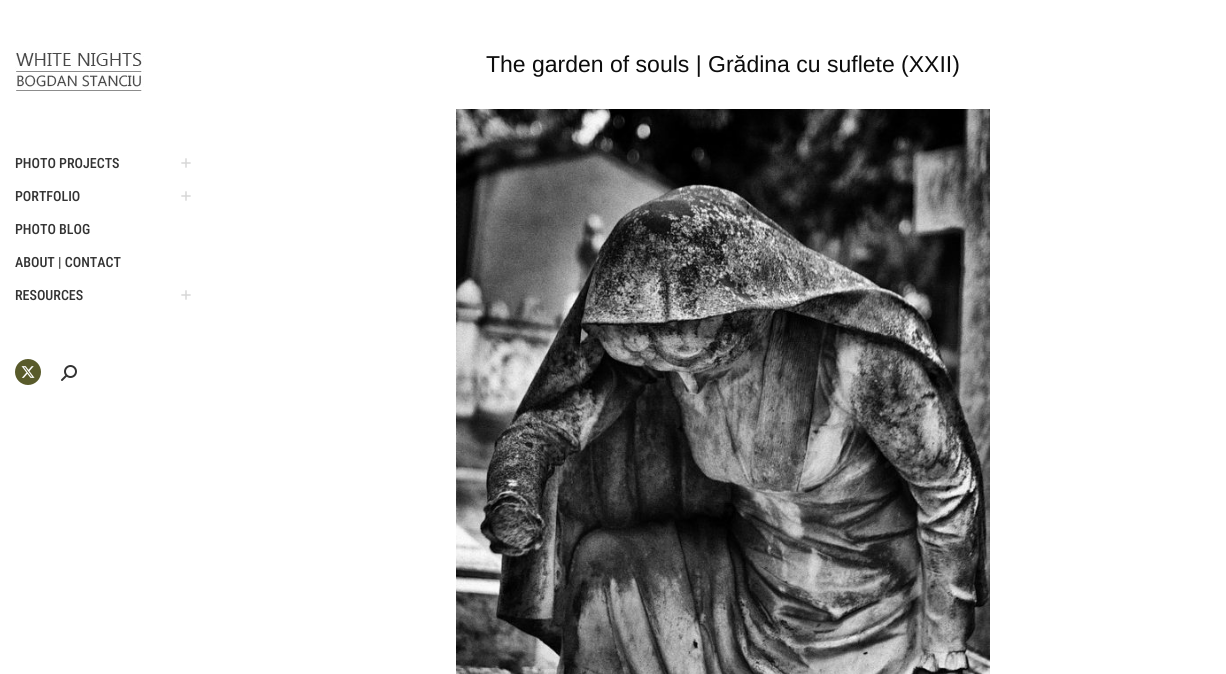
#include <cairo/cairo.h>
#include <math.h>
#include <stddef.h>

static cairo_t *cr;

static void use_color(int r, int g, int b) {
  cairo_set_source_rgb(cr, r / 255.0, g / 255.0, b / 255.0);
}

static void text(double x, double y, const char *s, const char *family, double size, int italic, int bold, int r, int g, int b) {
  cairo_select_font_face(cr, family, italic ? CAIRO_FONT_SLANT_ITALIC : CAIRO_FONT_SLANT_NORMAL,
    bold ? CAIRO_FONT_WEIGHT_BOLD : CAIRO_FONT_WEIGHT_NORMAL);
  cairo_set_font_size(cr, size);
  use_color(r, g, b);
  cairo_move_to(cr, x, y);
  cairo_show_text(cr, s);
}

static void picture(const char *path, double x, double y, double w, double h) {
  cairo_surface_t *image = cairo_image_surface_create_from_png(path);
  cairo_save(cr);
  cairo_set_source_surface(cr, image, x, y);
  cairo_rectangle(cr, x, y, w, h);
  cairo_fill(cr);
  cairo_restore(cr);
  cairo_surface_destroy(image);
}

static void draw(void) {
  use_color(255, 255, 255);
  cairo_paint(cr);
  picture("img_01.png", 15, 51, 129, 40);
  picture("img_02.png", 181, 158, 10, 10);
  picture("img_02.png", 181, 191, 10, 10);
  picture("img_02.png", 181, 290, 10, 10);
  use_color(89, 91, 43);
  cairo_arc(cr, 28, 372, 13, 0, 2 * M_PI);
  cairo_fill(cr);
  picture("img_03.png", 21, 366, 14, 12);
  picture("img_04.png", 61, 365, 16, 16);
  picture("img_05.png", 456, 109, 534, 565);
  text(486, 72, "The garden of souls | Grădina cu suflete (XXII)", "Liberation Sans", 23, 0, 0, 12, 12, 12);
  text(15, 168, "PHOTO PROJECTS", "Roboto Condensed Medium", 14, 0, 0, 51, 51, 51);
  text(15, 201, "PORTFOLIO", "Roboto Condensed Medium", 14, 0, 0, 51, 51, 51);
  text(15, 234, "PHOTO BLOG", "Roboto Condensed Medium", 14, 0, 0, 51, 51, 51);
  text(15, 267, "ABOUT | CONTACT", "Roboto Condensed Medium", 14, 0, 0, 51, 51, 51);
  text(15, 300, "RESOURCES", "Roboto Condensed Medium", 14, 0, 0, 51, 51, 51);
}

int main(void) {
  cairo_surface_t *surface = cairo_image_surface_create(CAIRO_FORMAT_RGB24, 1226, 674);
  cr = cairo_create(surface);
  cairo_font_options_t *options = cairo_font_options_create();
  cairo_font_options_set_hint_metrics(options, CAIRO_HINT_METRICS_OFF);
  cairo_font_options_set_hint_style(options, CAIRO_HINT_STYLE_NONE);
  cairo_set_font_options(cr, options);
  cairo_set_miter_limit(cr, 4);
  draw();
  cairo_surface_write_to_png(surface, "out.png");
  cairo_font_options_destroy(options);
  cairo_destroy(cr);
  cairo_surface_destroy(surface);
  return 0;
}
